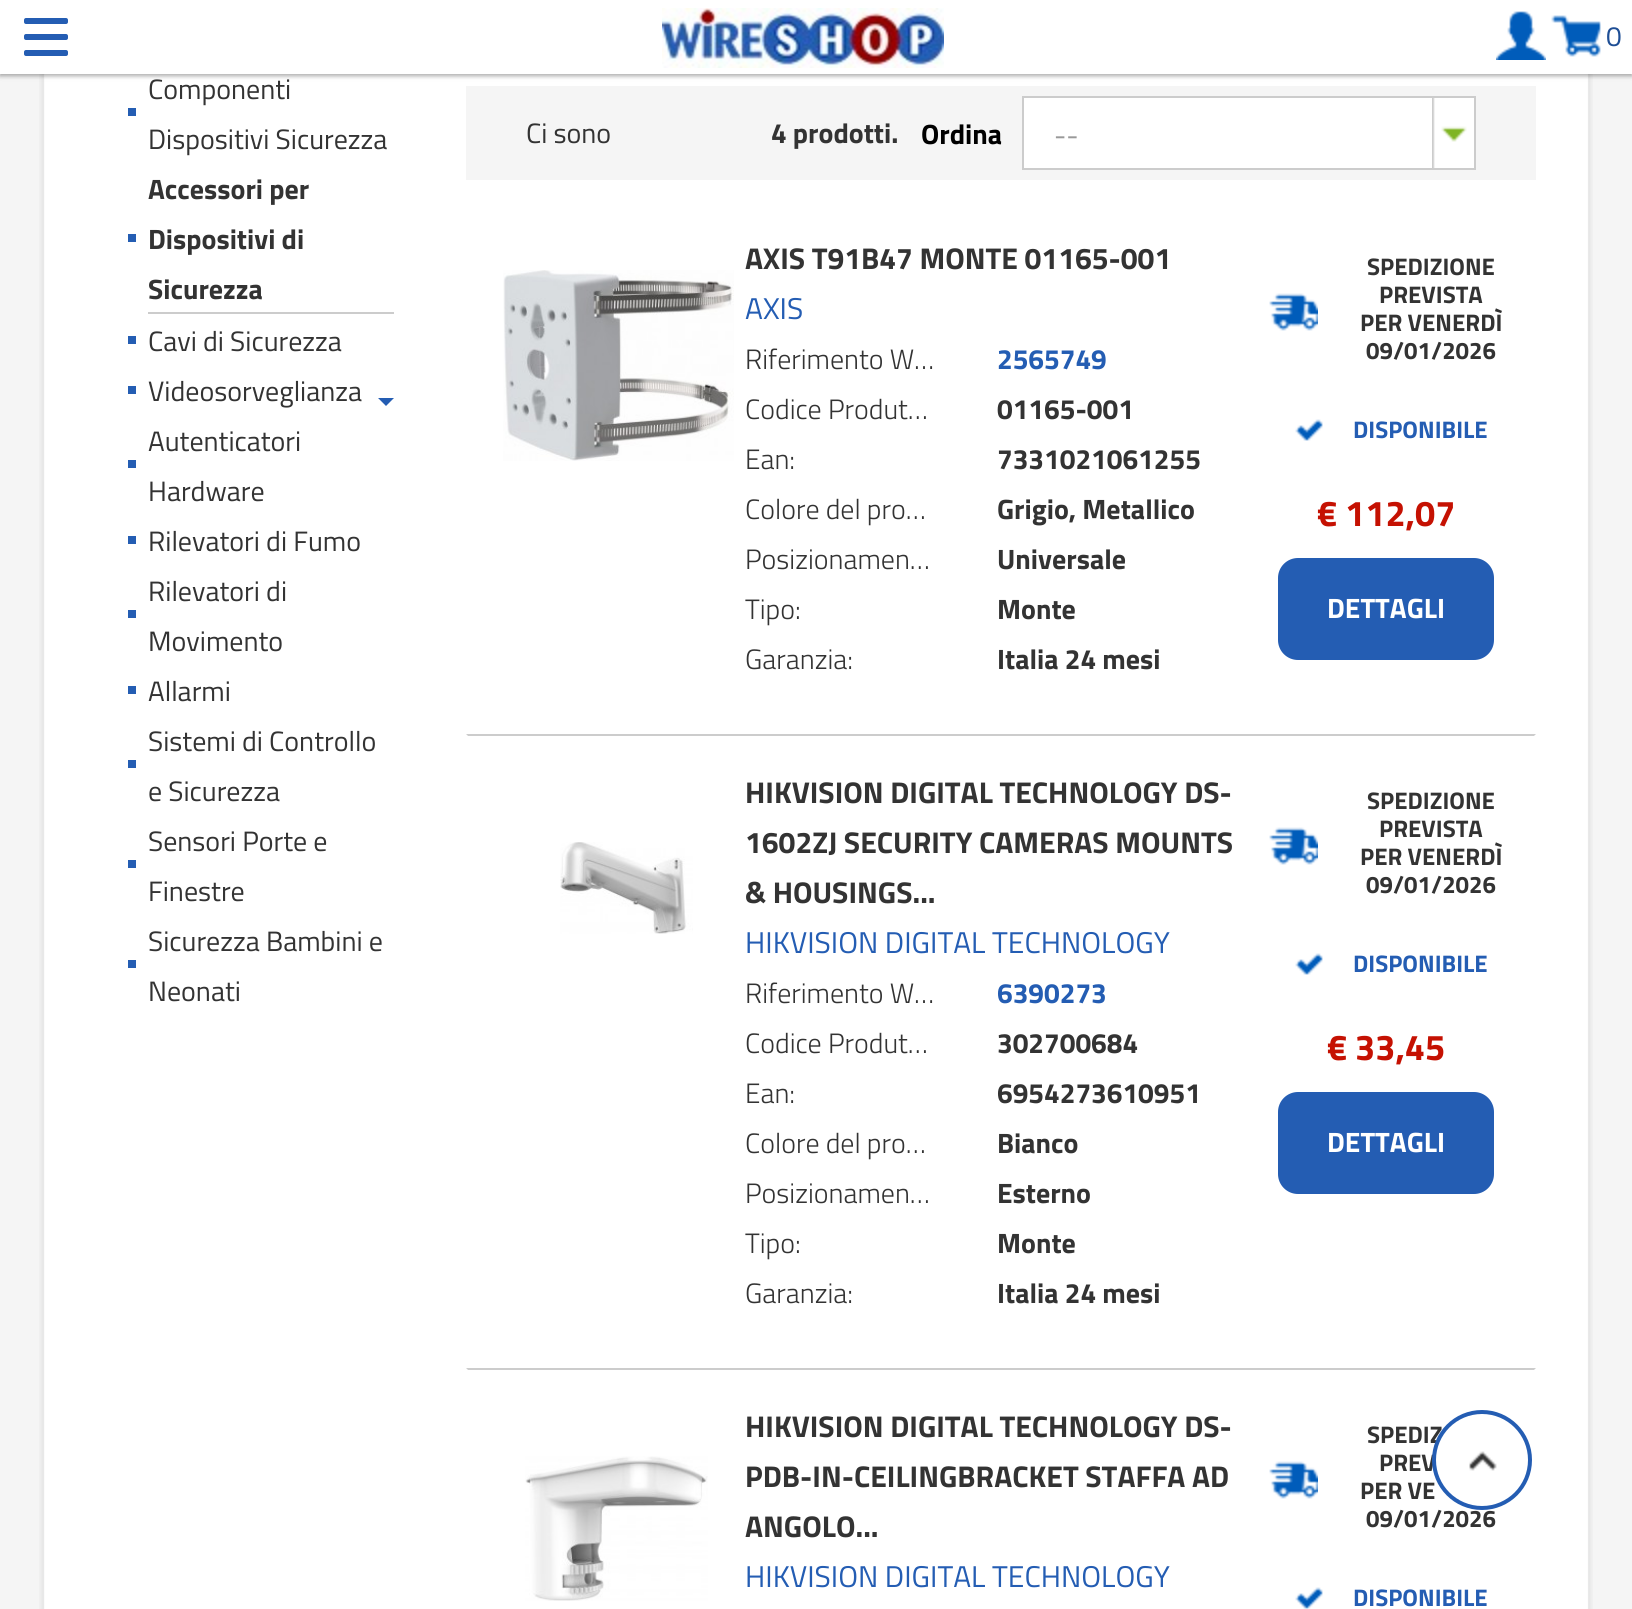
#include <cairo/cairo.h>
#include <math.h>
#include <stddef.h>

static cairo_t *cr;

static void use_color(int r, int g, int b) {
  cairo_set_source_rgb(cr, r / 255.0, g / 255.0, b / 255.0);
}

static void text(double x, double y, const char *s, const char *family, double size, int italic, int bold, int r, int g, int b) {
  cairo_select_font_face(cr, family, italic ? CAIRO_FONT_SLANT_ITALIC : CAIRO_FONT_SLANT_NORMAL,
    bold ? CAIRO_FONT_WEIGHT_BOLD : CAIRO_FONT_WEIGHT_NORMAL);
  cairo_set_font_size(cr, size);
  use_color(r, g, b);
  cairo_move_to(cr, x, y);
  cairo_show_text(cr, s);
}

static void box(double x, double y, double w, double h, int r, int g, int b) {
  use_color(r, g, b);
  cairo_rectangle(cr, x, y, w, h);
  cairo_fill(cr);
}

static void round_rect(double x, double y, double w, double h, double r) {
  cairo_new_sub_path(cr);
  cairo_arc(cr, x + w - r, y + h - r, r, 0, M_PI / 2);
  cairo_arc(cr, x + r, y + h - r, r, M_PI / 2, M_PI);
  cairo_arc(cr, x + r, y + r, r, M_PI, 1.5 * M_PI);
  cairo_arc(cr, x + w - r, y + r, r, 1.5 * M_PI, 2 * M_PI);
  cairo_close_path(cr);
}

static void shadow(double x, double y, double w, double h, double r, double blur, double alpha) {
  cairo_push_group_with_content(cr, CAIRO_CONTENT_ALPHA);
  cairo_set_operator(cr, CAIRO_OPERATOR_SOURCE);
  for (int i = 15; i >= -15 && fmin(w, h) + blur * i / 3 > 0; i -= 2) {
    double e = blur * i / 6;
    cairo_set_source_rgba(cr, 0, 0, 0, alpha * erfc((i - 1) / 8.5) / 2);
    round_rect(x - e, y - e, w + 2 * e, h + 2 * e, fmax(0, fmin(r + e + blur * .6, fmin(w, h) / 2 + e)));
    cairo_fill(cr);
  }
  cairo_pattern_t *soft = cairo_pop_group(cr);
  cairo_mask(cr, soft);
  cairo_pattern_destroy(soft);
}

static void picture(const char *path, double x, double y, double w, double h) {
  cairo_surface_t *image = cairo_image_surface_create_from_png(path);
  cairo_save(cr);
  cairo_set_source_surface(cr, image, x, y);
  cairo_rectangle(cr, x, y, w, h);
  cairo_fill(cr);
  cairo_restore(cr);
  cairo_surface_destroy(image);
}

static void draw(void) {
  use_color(245, 245, 245);
  cairo_paint(cr);
  picture("img_01.png", 39, 74, 1554, 1535);
  use_color(0, 0, 0);
  shadow(0, 2, 1632, 74, 0, 2, 0.24);
  shadow(0, 2, 1632, 74, 0, 3, 0.12);
  box(0, 0, 1632, 74, 255, 255, 255);
  use_color(36, 93, 179);
  round_rect(24, 18, 44, 6, 2);
  cairo_fill(cr);
  round_rect(24, 34, 44, 6, 2);
  cairo_fill(cr);
  round_rect(24, 50, 44, 6, 2);
  cairo_fill(cr);
  picture("img_02.png", 662, 8, 282, 60);
  picture("img_03.png", 1496, 11, 50, 49);
  picture("img_04.png", 1551, 15, 50, 42);
  box(128, 108, 8, 8, 36, 93, 179);
  box(128, 234, 8, 8, 36, 93, 179);
  box(148, 312, 246, 2, 204, 204, 204);
  box(128, 336, 8, 8, 36, 93, 179);
  box(128, 386, 8, 8, 36, 93, 179);
  cairo_new_path(cr);
  cairo_move_to(cr, 378, 398);
  cairo_line_to(cr, 394, 398);
  cairo_line_to(cr, 386, 406);
  cairo_close_path(cr);
  cairo_fill(cr);
  box(128, 460, 8, 8, 36, 93, 179);
  box(128, 536, 8, 8, 36, 93, 179);
  box(128, 610, 8, 8, 36, 93, 179);
  box(128, 686, 8, 8, 36, 93, 179);
  box(128, 760, 8, 8, 36, 93, 179);
  box(128, 860, 8, 8, 36, 93, 179);
  box(128, 960, 8, 8, 36, 93, 179);
  box(466, 86, 1070, 94, 245, 245, 245);
  box(1024, 98, 450, 70, 255, 255, 255);
  picture("img_05.png", 1432, 98, 35, 70);
  cairo_rectangle(cr, 1023, 97, 452, 72);
  use_color(204, 204, 204);
  cairo_stroke(cr);
  picture("img_06.png", 503, 270, 231, 191);
  picture("img_07.png", 1269, 293, 49, 38);
  picture("img_08.png", 1295, 419, 28, 22);
  use_color(36, 93, 179);
  round_rect(1279, 559, 214, 100, 19);
  cairo_fill_preserve(cr);
  cairo_stroke(cr);
  use_color(204, 204, 204);
  cairo_new_path(cr);
  cairo_move_to(cr, 466, 734);
  cairo_line_to(cr, 1536, 734);
  cairo_line_to(cr, 1534, 736);
  cairo_line_to(cr, 468, 736);
  cairo_close_path(cr);
  cairo_fill(cr);
  picture("img_09.png", 560, 842, 133, 92);
  picture("img_07.png", 1269, 827, 49, 38);
  picture("img_08.png", 1295, 953, 28, 22);
  use_color(36, 93, 179);
  round_rect(1279, 1093, 214, 100, 19);
  cairo_fill_preserve(cr);
  cairo_stroke(cr);
  use_color(204, 204, 204);
  cairo_new_path(cr);
  cairo_move_to(cr, 466, 1368);
  cairo_line_to(cr, 1536, 1368);
  cairo_line_to(cr, 1534, 1370);
  cairo_line_to(cr, 468, 1370);
  cairo_close_path(cr);
  cairo_fill(cr);
  picture("img_10.png", 525, 1456, 183, 145);
  picture("img_07.png", 1269, 1461, 49, 38);
  picture("img_08.png", 1295, 1587, 28, 22);
  text(1606, 46, "0", "Titillium Web", 28, 0, 0, 30, 78, 149);
  text(148, 99, "Componenti", "Titillium Web", 28, 0, 0, 51, 51, 51);
  text(148, 149, "Dispositivi Sicurezza", "Titillium Web", 28, 0, 0, 51, 51, 51);
  text(148, 199, "Accessori per", "Titillium Web", 28, 0, 1, 51, 51, 51);
  text(148, 249, "Dispositivi di", "Titillium Web", 28, 0, 1, 51, 51, 51);
  text(148, 299, "Sicurezza", "Titillium Web", 28, 0, 1, 51, 51, 51);
  text(148, 351, "Cavi di Sicurezza", "Titillium Web", 28, 0, 0, 51, 51, 51);
  text(148, 401, "Videosorveglianza", "Titillium Web", 28, 0, 0, 51, 51, 51);
  text(148, 451, "Autenticatori", "Titillium Web", 28, 0, 0, 51, 51, 51);
  text(148, 501, "Hardware", "Titillium Web", 28, 0, 0, 51, 51, 51);
  text(148, 551, "Rilevatori di Fumo", "Titillium Web", 28, 0, 0, 51, 51, 51);
  text(148, 601, "Rilevatori di", "Titillium Web", 28, 0, 0, 51, 51, 51);
  text(148, 651, "Movimento", "Titillium Web", 28, 0, 0, 51, 51, 51);
  text(148, 701, "Allarmi", "Titillium Web", 28, 0, 0, 51, 51, 51);
  text(148, 751, "Sistemi di Controllo", "Titillium Web", 28, 0, 0, 51, 51, 51);
  text(148, 801, "e Sicurezza", "Titillium Web", 28, 0, 0, 51, 51, 51);
  text(148, 851, "Sensori Porte e", "Titillium Web", 28, 0, 0, 51, 51, 51);
  text(148, 901, "Finestre", "Titillium Web", 28, 0, 0, 51, 51, 51);
  text(148, 951, "Sicurezza Bambini e", "Titillium Web", 28, 0, 0, 51, 51, 51);
  text(148, 1001, "Neonati", "Titillium Web", 28, 0, 0, 51, 51, 51);
  text(526, 143, "Ci sono", "Titillium Web", 28, 0, 0, 51, 51, 51);
  text(771, 143, "4 prodotti.", "Titillium Web", 28, 0, 1, 51, 51, 51);
  text(921, 144, "Ordina", "Titillium Web", 28, 0, 1, 0, 0, 0);
  text(1054, 145, "--", "Titillium Web", 28, 0, 0, 153, 153, 153);
  text(745, 269, "AXIS T91B47 MONTE 01165-001", "Titillium Web", 30, 0, 1, 51, 51, 51);
  text(745, 319, "AXIS", "Titillium Web", 30, 0, 0, 36, 93, 179);
  text(745, 369, "Riferimento W…", "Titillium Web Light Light", 28, 0, 0, 51, 51, 51);
  text(997, 369, "2565749", "Titillium Web", 28, 0, 1, 36, 93, 179);
  text(745, 419, "Codice Produt…", "Titillium Web Light Light", 28, 0, 0, 51, 51, 51);
  text(997, 419, "01165-001", "Titillium Web", 28, 0, 1, 51, 51, 51);
  text(745, 469, "Ean:", "Titillium Web Light Light", 28, 0, 0, 51, 51, 51);
  text(997, 469, "7331021061255", "Titillium Web", 28, 0, 1, 51, 51, 51);
  text(745, 519, "Colore del pro…", "Titillium Web Light Light", 28, 0, 0, 51, 51, 51);
  text(997, 519, "Grigio, Metallico", "Titillium Web", 28, 0, 1, 51, 51, 51);
  text(745, 569, "Posizionamen…", "Titillium Web Light Light", 28, 0, 0, 51, 51, 51);
  text(997, 569, "Universale", "Titillium Web", 28, 0, 1, 51, 51, 51);
  text(745, 619, "Tipo:", "Titillium Web Light Light", 28, 0, 0, 51, 51, 51);
  text(997, 619, "Monte", "Titillium Web", 28, 0, 1, 51, 51, 51);
  text(745, 669, "Garanzia:", "Titillium Web Light Light", 28, 0, 0, 51, 51, 51);
  text(997, 669, "Italia 24 mesi", "Titillium Web", 28, 0, 1, 51, 51, 51);
  text(1367, 275, "SPEDIZIONE", "Titillium Web", 24, 0, 1, 51, 51, 51);
  text(1379, 303, "PREVISTA", "Titillium Web", 24, 0, 1, 51, 51, 51);
  text(1360, 331, "PER VENERDÌ", "Titillium Web", 24, 0, 1, 51, 51, 51);
  text(1366, 359, "09/01/2026", "Titillium Web", 24, 0, 1, 51, 51, 51);
  text(1353, 438, "DISPONIBILE", "Titillium Web", 24, 0, 1, 36, 93, 179);
  text(1317, 526, "€ 112,07", "Titillium Web", 36, 0, 1, 197, 17, 2);
  text(1327, 618, "DETTAGLI", "Titillium Web", 28, 0, 1, 255, 255, 255);
  text(745, 803, "HIKVISION DIGITAL TECHNOLOGY DS-", "Titillium Web", 30, 0, 1, 51, 51, 51);
  text(745, 853, "1602ZJ SECURITY CAMERAS MOUNTS", "Titillium Web", 30, 0, 1, 51, 51, 51);
  text(745, 903, "& HOUSINGS...", "Titillium Web", 30, 0, 1, 51, 51, 51);
  text(745, 953, "HIKVISION DIGITAL TECHNOLOGY", "Titillium Web", 30, 0, 0, 36, 93, 179);
  text(745, 1003, "Riferimento W…", "Titillium Web Light Light", 28, 0, 0, 51, 51, 51);
  text(997, 1003, "6390273", "Titillium Web", 28, 0, 1, 36, 93, 179);
  text(745, 1053, "Codice Produt…", "Titillium Web Light Light", 28, 0, 0, 51, 51, 51);
  text(997, 1053, "302700684", "Titillium Web", 28, 0, 1, 51, 51, 51);
  text(745, 1103, "Ean:", "Titillium Web Light Light", 28, 0, 0, 51, 51, 51);
  text(997, 1103, "6954273610951", "Titillium Web", 28, 0, 1, 51, 51, 51);
  text(745, 1153, "Colore del pro…", "Titillium Web Light Light", 28, 0, 0, 51, 51, 51);
  text(997, 1153, "Bianco", "Titillium Web", 28, 0, 1, 51, 51, 51);
  text(745, 1203, "Posizionamen…", "Titillium Web Light Light", 28, 0, 0, 51, 51, 51);
  text(997, 1203, "Esterno", "Titillium Web", 28, 0, 1, 51, 51, 51);
  text(745, 1253, "Tipo:", "Titillium Web Light Light", 28, 0, 0, 51, 51, 51);
  text(997, 1253, "Monte", "Titillium Web", 28, 0, 1, 51, 51, 51);
  text(745, 1303, "Garanzia:", "Titillium Web Light Light", 28, 0, 0, 51, 51, 51);
  text(997, 1303, "Italia 24 mesi", "Titillium Web", 28, 0, 1, 51, 51, 51);
  text(1367, 809, "SPEDIZIONE", "Titillium Web", 24, 0, 1, 51, 51, 51);
  text(1379, 837, "PREVISTA", "Titillium Web", 24, 0, 1, 51, 51, 51);
  text(1360, 865, "PER VENERDÌ", "Titillium Web", 24, 0, 1, 51, 51, 51);
  text(1366, 893, "09/01/2026", "Titillium Web", 24, 0, 1, 51, 51, 51);
  text(1353, 972, "DISPONIBILE", "Titillium Web", 24, 0, 1, 36, 93, 179);
  text(1327, 1060, "€ 33,45", "Titillium Web", 36, 0, 1, 197, 17, 2);
  text(1327, 1152, "DETTAGLI", "Titillium Web", 28, 0, 1, 255, 255, 255);
  text(745, 1437, "HIKVISION DIGITAL TECHNOLOGY DS-", "Titillium Web", 30, 0, 1, 51, 51, 51);
  text(745, 1487, "PDB-IN-CEILINGBRACKET STAFFA AD", "Titillium Web", 30, 0, 1, 51, 51, 51);
  text(745, 1537, "ANGOLO...", "Titillium Web", 30, 0, 1, 51, 51, 51);
  text(745, 1587, "HIKVISION DIGITAL TECHNOLOGY", "Titillium Web", 30, 0, 0, 36, 93, 179);
  text(1367, 1443, "SPEDIZ", "Titillium Web", 24, 0, 1, 51, 51, 51);
  text(1379, 1471, "PREV", "Titillium Web", 24, 0, 1, 51, 51, 51);
  text(1360, 1499, "PER VE", "Titillium Web", 24, 0, 1, 51, 51, 51);
  text(1366, 1527, "09/01/2026", "Titillium Web", 24, 0, 1, 51, 51, 51);
  text(1353, 1606, "DISPONIBILE", "Titillium Web", 24, 0, 1, 36, 93, 179);
  use_color(255, 255, 255);
  cairo_new_path(cr);
  cairo_arc(cr, 1482, 1460, 48, 0, 2 * M_PI);
  cairo_fill_preserve(cr);
  use_color(36, 93, 179);
  cairo_set_line_width(cr, 4);
  cairo_stroke(cr);
  picture("img_11.png", 1469, 1451, 28, 20);
}

int main(void) {
  cairo_surface_t *surface = cairo_image_surface_create(CAIRO_FORMAT_RGB24, 1632, 1609);
  cr = cairo_create(surface);
  cairo_font_options_t *options = cairo_font_options_create();
  cairo_font_options_set_hint_metrics(options, CAIRO_HINT_METRICS_OFF);
  cairo_font_options_set_hint_style(options, CAIRO_HINT_STYLE_NONE);
  cairo_set_font_options(cr, options);
  cairo_set_miter_limit(cr, 4);
  draw();
  cairo_surface_write_to_png(surface, "out.png");
  cairo_font_options_destroy(options);
  cairo_destroy(cr);
  cairo_surface_destroy(surface);
  return 0;
}
